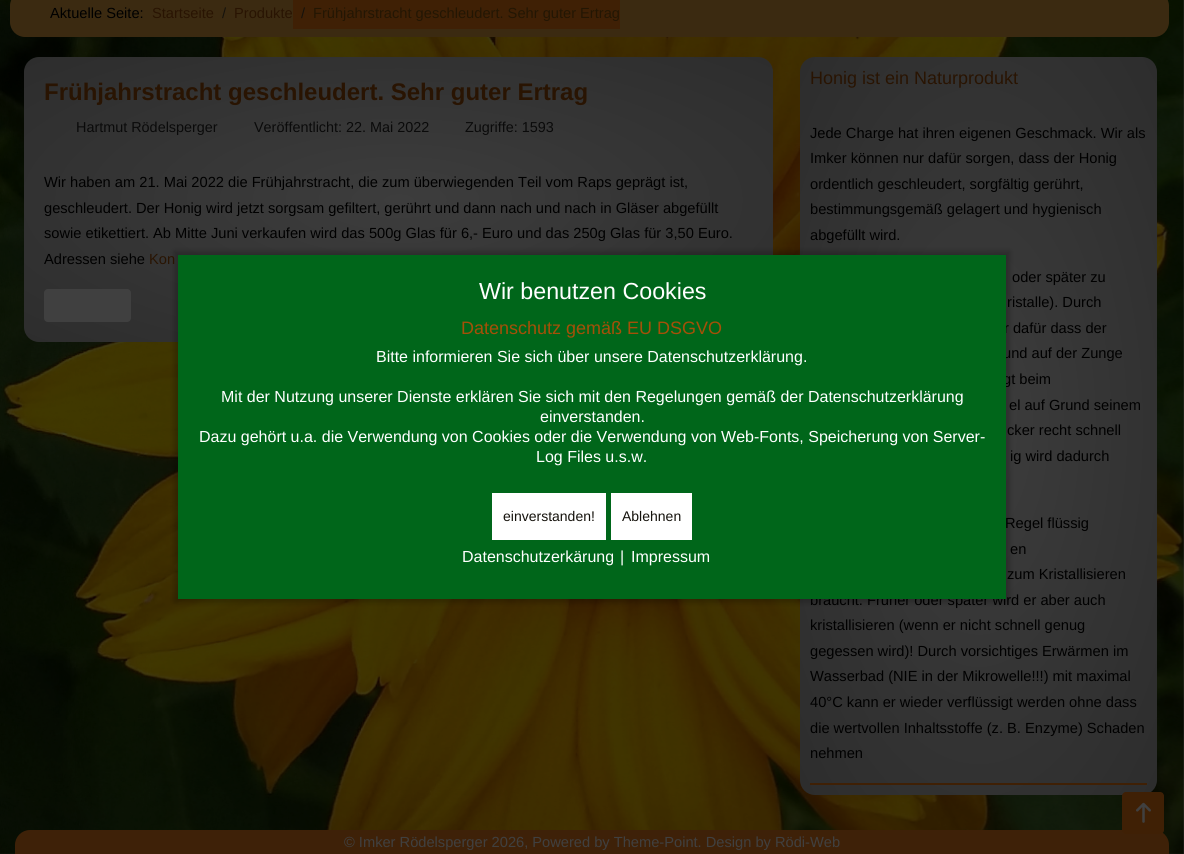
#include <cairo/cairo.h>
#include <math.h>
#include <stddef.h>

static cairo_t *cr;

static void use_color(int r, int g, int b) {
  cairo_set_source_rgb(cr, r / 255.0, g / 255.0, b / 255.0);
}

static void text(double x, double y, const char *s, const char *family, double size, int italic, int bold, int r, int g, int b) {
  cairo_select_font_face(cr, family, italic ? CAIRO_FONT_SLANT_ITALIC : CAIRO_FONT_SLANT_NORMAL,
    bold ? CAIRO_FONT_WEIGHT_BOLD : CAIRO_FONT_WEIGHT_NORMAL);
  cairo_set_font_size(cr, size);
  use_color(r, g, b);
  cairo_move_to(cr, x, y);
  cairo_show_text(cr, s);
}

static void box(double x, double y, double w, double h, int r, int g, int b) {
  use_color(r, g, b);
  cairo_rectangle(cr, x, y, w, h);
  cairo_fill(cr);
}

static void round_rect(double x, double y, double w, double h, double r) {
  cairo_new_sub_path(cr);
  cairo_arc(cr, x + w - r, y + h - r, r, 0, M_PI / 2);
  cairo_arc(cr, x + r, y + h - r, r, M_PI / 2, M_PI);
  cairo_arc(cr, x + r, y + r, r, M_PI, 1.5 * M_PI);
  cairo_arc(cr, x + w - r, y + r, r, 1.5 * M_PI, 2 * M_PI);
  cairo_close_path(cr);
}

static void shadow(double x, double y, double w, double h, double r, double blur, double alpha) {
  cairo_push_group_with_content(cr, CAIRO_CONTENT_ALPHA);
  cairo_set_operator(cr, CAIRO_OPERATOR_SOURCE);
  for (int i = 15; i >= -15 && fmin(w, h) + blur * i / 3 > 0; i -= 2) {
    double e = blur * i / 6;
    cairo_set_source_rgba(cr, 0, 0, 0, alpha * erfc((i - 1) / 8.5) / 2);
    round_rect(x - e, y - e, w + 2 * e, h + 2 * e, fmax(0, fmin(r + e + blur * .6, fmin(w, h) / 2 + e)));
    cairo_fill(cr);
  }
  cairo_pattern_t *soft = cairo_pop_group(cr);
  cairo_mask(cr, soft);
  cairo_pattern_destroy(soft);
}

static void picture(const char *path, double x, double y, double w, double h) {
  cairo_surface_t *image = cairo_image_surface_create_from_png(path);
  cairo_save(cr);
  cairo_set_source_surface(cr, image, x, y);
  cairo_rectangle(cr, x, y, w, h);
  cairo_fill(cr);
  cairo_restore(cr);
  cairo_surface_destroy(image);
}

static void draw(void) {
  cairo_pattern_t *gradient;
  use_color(64, 64, 64);
  cairo_paint(cr);
  picture("img_01.png", 0, 0, 1184, 854);
  use_color(59, 42, 17);
  round_rect(10, -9, 1159, 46, 15);
  cairo_fill(cr);
  box(293, 0, 327, 29, 63, 32, 5);
  gradient = cairo_pattern_create_radial(0, 0, 0, 0, 0, 1);
  cairo_pattern_set_matrix(gradient, &(cairo_matrix_t){1.0 / 530, 0, 0, 1.0 / 202, -1.0 * 399 / 530, -1.0 * 200 / 202});
  cairo_pattern_add_color_stop_rgba(gradient, 0, 0.239, 0.239, 0.239, 1);
  cairo_pattern_add_color_stop_rgba(gradient, 1, 0.176, 0.176, 0.176, 1);
  cairo_set_source(cr, gradient);
  cairo_pattern_destroy(gradient);
  round_rect(24, 57, 749, 285, 15);
  cairo_fill(cr);
  use_color(64, 64, 64);
  round_rect(44, 289, 87, 33, 4);
  cairo_fill(cr);
  gradient = cairo_pattern_create_radial(0, 0, 0, 0, 0, 1);
  cairo_pattern_set_matrix(gradient, &(cairo_matrix_t){1.0 / 252, 0, 0, 1.0 / 522, -1.0 * 979 / 252, -1.0 * 426 / 522});
  cairo_pattern_add_color_stop_rgba(gradient, 0, 0.239, 0.239, 0.239, 1);
  cairo_pattern_add_color_stop_rgba(gradient, 1, 0.176, 0.176, 0.176, 1);
  cairo_set_source(cr, gradient);
  cairo_pattern_destroy(gradient);
  round_rect(800, 57, 357, 738, 15);
  cairo_fill(cr);
  box(810, 783, 337, 2, 63, 32, 5);
  use_color(62, 33, 8);
  round_rect(15, 830, 1154, 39, 15);
  cairo_fill(cr);
  use_color(0, 0, 0);
  shadow(174, 251, 836, 352, 0, 2.5, 0.21);
  use_color(63, 32, 5);
  round_rect(1122, 792, 42, 42, 4);
  cairo_fill(cr);
  picture("img_02.png", 1136, 802, 15, 21);
  text(50, 18, "Aktuelle Seite:", "Liberation Sans", 14.65, 0, 0, 0, 0, 0);
  text(152, 18, "Startseite", "Liberation Sans", 14.65, 0, 0, 41, 20, 2);
  text(222, 18, "/", "Liberation Sans", 14.65, 0, 0, 21, 18, 12);
  text(234, 18, "Produkte", "Liberation Sans", 14.65, 0, 0, 41, 20, 2);
  text(301, 18, "/", "Liberation Sans", 14.65, 0, 0, 21, 18, 12);
  text(313, 18, "Frühjahrstracht geschleudert. Sehr guter Ertrag", "Liberation Sans", 14.65, 0, 0, 35, 22, 3);
  text(44, 100, "Frühjahrstracht geschleudert. Sehr guter Ertrag", "Liberation Sans", 24, 0, 1, 41, 20, 2);
  text(76, 132, "Hartmut Rödelsperger", "Liberation Sans", 14.4, 0, 0, 10, 10, 10);
  text(254, 132, "Veröffentlicht: 22. Mai 2022", "Liberation Sans", 14.4, 0, 0, 10, 10, 10);
  text(465, 132, "Zugriffe: 1593", "Liberation Sans", 14.4, 0, 0, 10, 10, 10);
  text(44, 187, "Wir haben am 21. Mai 2022 die Frühjahrstracht, die zum überwiegenden Teil vom Raps geprägt ist,", "Liberation Sans", 14.65, 0, 0, 0, 0, 0);
  text(44, 213, "geschleudert. Der Honig wird jetzt sorgsam gefiltert, gerührt und dann nach und nach in Gläser abgefüllt", "Liberation Sans", 14.65, 0, 0, 0, 0, 0);
  text(44, 238, "sowie etikettiert. Ab Mitte Juni verkaufen wird das 500g Glas für 6,- Euro und das 250g Glas für 3,50 Euro.", "Liberation Sans", 14.65, 0, 0, 0, 0, 0);
  text(44, 264, "Adressen siehe", "Liberation Sans", 14.65, 0, 0, 0, 0, 0);
  text(149, 264, "Kon", "Liberation Sans", 14.65, 0, 0, 41, 20, 2);
  text(810, 84, "Honig ist ein Naturprodukt", "Liberation Sans", 18, 0, 0, 41, 20, 2);
  text(810, 138, "Jede Charge hat ihren eigenen Geschmack. Wir als", "Liberation Sans", 14.65, 0, 0, 0, 0, 0);
  text(810, 163, "Imker können nur dafür sorgen, dass der Honig", "Liberation Sans", 14.65, 0, 0, 0, 0, 0);
  text(810, 189, "ordentlich geschleudert, sorgfältig gerührt,", "Liberation Sans", 14.65, 0, 0, 0, 0, 0);
  text(810, 214, "bestimmungsgemäß gelagert und hygienisch", "Liberation Sans", 14.65, 0, 0, 0, 0, 0);
  text(810, 240, "abgefüllt wird.", "Liberation Sans", 14.65, 0, 0, 0, 0, 0);
  text(1012, 282, "oder später zu", "Liberation Sans", 14.65, 0, 0, 0, 0, 0);
  text(1007, 307, "ristalle). Durch", "Liberation Sans", 14.65, 0, 0, 0, 0, 0);
  text(1004, 333, "r dafür dass der", "Liberation Sans", 14.65, 0, 0, 0, 0, 0);
  text(1003, 358, "und auf der Zunge", "Liberation Sans", 14.65, 0, 0, 0, 0, 0);
  text(1003, 384, "gt beim", "Liberation Sans", 14.65, 0, 0, 0, 0, 0);
  text(1009, 410, "el auf Grund seinem", "Liberation Sans", 14.65, 0, 0, 0, 0, 0);
  text(1007, 435, "cker recht schnell", "Liberation Sans", 14.65, 0, 0, 0, 0, 0);
  text(1010, 461, "ig wird dadurch", "Liberation Sans", 14.65, 0, 0, 0, 0, 0);
  text(1005, 528, "Regel flüssig", "Liberation Sans", 14.65, 0, 0, 0, 0, 0);
  text(1010, 554, "en", "Liberation Sans", 14.65, 0, 0, 0, 0, 0);
  text(1007, 579, "zum Kristallisieren", "Liberation Sans", 14.65, 0, 0, 0, 0, 0);
  text(810, 605, "braucht. Früher oder später wird er aber auch", "Liberation Sans", 14.65, 0, 0, 0, 0, 0);
  text(810, 630, "kristallisieren (wenn er nicht schnell genug", "Liberation Sans", 14.65, 0, 0, 0, 0, 0);
  text(810, 656, "gegessen wird)! Durch vorsichtiges Erwärmen im", "Liberation Sans", 14.65, 0, 0, 0, 0, 0);
  text(810, 681, "Wasserbad (NIE in der Mikrowelle!!!) mit maximal", "Liberation Sans", 14.65, 0, 0, 0, 0, 0);
  text(810, 707, "40°C kann er wieder verflüssigt werden ohne dass", "Liberation Sans", 14.65, 0, 0, 0, 0, 0);
  text(810, 733, "die wertvollen Inhaltsstoffe (z. B. Enzyme) Schaden", "Liberation Sans", 14.65, 0, 0, 0, 0, 0);
  text(810, 758, "nehmen", "Liberation Sans", 14.65, 0, 0, 0, 0, 0);
  text(344, 847, "© Imker Rödelsperger 2026, Powered by Theme-Point. Design by Rödi-Web", "Liberation Sans", 14.65, 0, 0, 64, 64, 64);
  box(178, 255, 828, 344, 0, 102, 26);
  text(479, 299, "Wir benutzen Cookies", "Liberation Sans", 23.25, 0, 0, 255, 255, 255);
  text(461, 334, "Datenschutz gemäß EU DSGVO", "Liberation Sans", 18, 0, 0, 165, 80, 8);
  text(376, 362, "Bitte informieren Sie sich über unsere Datenschutzerklärung.", "Liberation Sans", 16, 0, 0, 255, 255, 255);
  text(221, 402, "Mit der Nutzung unserer Dienste erklären Sie sich mit den Regelungen gemäß der Datenschutzerklärung", "Liberation Sans", 16, 0, 0, 255, 255, 255);
  text(540, 422, "einverstanden.", "Liberation Sans", 16, 0, 0, 255, 255, 255);
  text(199, 442, "Dazu gehört u.a. die Verwendung von Cookies oder die Verwendung von Web-Fonts, Speicherung von Server-", "Liberation Sans", 16, 0, 0, 255, 255, 255);
  text(536, 462, "Log Files u.s.w.", "Liberation Sans", 16, 0, 0, 255, 255, 255);
  box(492, 493, 114, 47, 255, 255, 255);
  text(503, 521, "einverstanden!", "Liberation Sans", 14, 0, 0, 21, 18, 12);
  box(611, 493, 81, 47, 255, 255, 255);
  text(622, 521, "Ablehnen", "Liberation Sans", 14, 0, 0, 21, 18, 12);
  text(462, 562, "Datenschutzerkärung", "Liberation Sans", 16, 0, 0, 255, 255, 255);
  text(620, 562, "|", "Liberation Sans", 16, 0, 0, 255, 255, 255);
  text(631, 562, "Impressum", "Liberation Sans", 16, 0, 0, 255, 255, 255);
}

int main(void) {
  cairo_surface_t *surface = cairo_image_surface_create(CAIRO_FORMAT_RGB24, 1184, 854);
  cr = cairo_create(surface);
  cairo_font_options_t *options = cairo_font_options_create();
  cairo_font_options_set_hint_metrics(options, CAIRO_HINT_METRICS_OFF);
  cairo_font_options_set_hint_style(options, CAIRO_HINT_STYLE_NONE);
  cairo_set_font_options(cr, options);
  cairo_set_miter_limit(cr, 4);
  draw();
  cairo_surface_write_to_png(surface, "out.png");
  cairo_font_options_destroy(options);
  cairo_destroy(cr);
  cairo_surface_destroy(surface);
  return 0;
}
